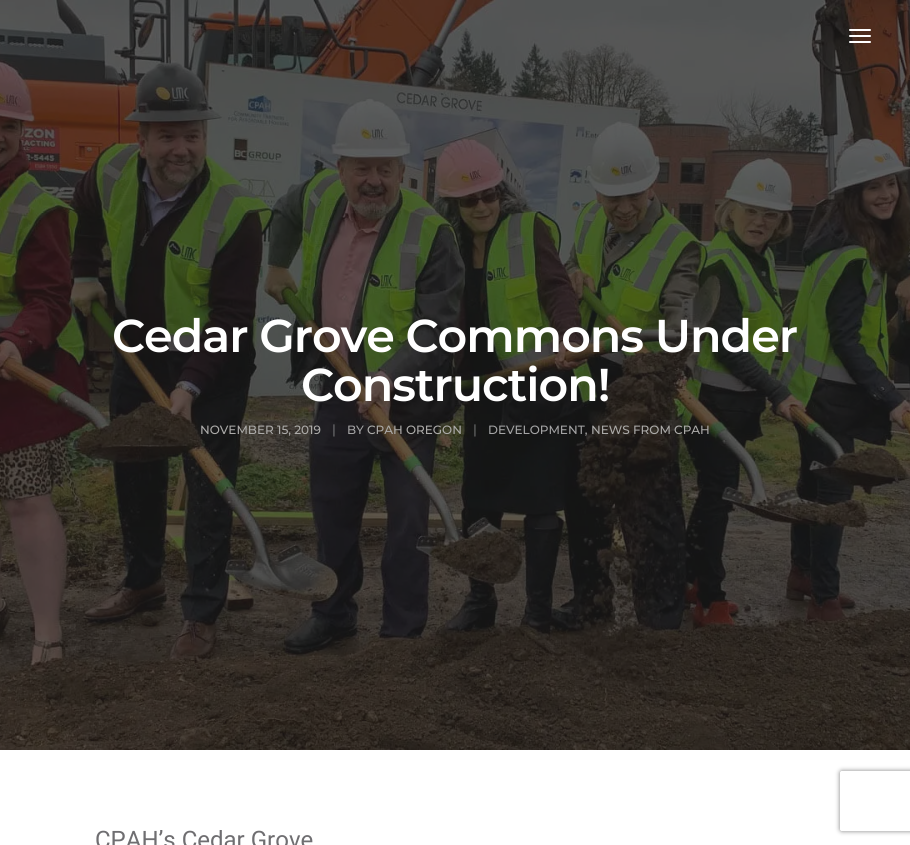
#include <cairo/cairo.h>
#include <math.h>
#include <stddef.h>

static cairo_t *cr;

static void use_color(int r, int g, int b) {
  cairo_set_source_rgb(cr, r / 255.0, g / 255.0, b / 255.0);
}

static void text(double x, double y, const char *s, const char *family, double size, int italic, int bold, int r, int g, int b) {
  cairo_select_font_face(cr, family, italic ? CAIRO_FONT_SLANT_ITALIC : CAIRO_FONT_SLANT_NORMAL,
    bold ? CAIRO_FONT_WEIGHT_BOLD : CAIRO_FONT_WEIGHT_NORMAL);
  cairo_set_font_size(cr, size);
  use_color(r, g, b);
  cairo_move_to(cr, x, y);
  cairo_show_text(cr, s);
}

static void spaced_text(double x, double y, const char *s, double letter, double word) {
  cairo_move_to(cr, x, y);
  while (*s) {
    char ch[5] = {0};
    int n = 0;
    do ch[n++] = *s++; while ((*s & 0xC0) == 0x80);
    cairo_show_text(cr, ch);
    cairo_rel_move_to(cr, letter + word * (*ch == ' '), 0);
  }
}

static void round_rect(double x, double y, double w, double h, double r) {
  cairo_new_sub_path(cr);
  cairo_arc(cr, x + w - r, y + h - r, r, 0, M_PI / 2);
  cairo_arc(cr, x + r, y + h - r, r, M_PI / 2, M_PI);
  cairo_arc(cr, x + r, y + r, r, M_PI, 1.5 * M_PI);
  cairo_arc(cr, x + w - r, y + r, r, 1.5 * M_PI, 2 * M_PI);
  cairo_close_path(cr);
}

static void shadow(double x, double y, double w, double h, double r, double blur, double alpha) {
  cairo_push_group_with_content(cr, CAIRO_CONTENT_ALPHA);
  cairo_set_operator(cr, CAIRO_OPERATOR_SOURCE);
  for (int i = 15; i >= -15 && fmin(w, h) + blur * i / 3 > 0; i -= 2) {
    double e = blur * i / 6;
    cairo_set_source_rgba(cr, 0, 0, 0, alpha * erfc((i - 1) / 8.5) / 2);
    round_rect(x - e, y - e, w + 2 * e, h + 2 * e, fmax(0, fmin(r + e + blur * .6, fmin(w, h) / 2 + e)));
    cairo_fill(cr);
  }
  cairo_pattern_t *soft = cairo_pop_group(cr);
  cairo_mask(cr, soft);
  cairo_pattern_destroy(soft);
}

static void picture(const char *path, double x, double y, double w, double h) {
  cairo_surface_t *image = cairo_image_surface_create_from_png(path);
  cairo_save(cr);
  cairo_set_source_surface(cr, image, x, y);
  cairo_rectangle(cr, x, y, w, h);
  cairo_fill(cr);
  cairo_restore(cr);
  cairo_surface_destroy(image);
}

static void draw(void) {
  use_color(255, 255, 255);
  cairo_paint(cr);
  picture("img_01.png", 0, 0, 910, 750);
  use_color(255, 255, 255);
  round_rect(849, 29, 22, 2, 1);
  cairo_fill(cr);
  round_rect(849, 35, 22, 2, 1);
  cairo_fill(cr);
  round_rect(849, 41, 22, 2, 1);
  cairo_fill(cr);
  cairo_save(cr);
  cairo_set_fill_rule(cr, CAIRO_FILL_RULE_EVEN_ODD);
  cairo_new_path(cr);
  cairo_move_to(cr, 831, 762);
  cairo_line_to(cr, 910, 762);
  cairo_line_to(cr, 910, 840);
  cairo_line_to(cr, 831, 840);
  cairo_close_path(cr);
  cairo_move_to(cr, 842, 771);
  cairo_line_to(cr, 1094, 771);
  cairo_curve_to(cr, 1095, 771, 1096, 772, 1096, 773);
  cairo_line_to(cr, 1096, 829);
  cairo_curve_to(cr, 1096, 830, 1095, 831, 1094, 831);
  cairo_line_to(cr, 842, 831);
  cairo_curve_to(cr, 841, 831, 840, 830, 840, 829);
  cairo_line_to(cr, 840, 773);
  cairo_curve_to(cr, 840, 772, 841, 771, 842, 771);
  cairo_close_path(cr);
  cairo_clip(cr);
  use_color(128, 128, 128);
  shadow(840, 771, 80, 60, 2, 2.5, 1);
  cairo_restore(cr);
  cairo_select_font_face(cr, "Montserrat SemiBold", CAIRO_FONT_SLANT_NORMAL, CAIRO_FONT_WEIGHT_NORMAL);
  cairo_set_font_size(cr, 46);
  spaced_text(112, 352, "Cedar Grove Commons Under", -1, 0);
  spaced_text(301, 401, "Construction!", -1, 0);
  text(200, 434, "NOVEMBER 15, 2019", "Montserrat Medium", 12, 0, 0, 172, 171, 169);
  text(332, 434, "|", "Montserrat Medium", 13, 0, 0, 111, 110, 113);
  text(347, 434, "BY", "Montserrat Medium", 12, 0, 0, 164, 164, 165);
  text(367, 434, "CPAH OREGON", "Montserrat Medium", 12, 0, 0, 172, 171, 169);
  text(473, 434, "|", "Montserrat Medium", 13, 0, 0, 105, 106, 106);
  text(488, 434, "DEVELOPMENT,", "Montserrat Medium", 12, 0, 0, 164, 164, 165);
  text(591, 434, "NEWS FROM CPAH", "Montserrat Medium", 12, 0, 0, 172, 171, 169);
  text(95, 848, "CPAH’s Cedar Grove", "Roboto", 24, 0, 0, 111, 110, 113);
}

int main(void) {
  cairo_surface_t *surface = cairo_image_surface_create(CAIRO_FORMAT_RGB24, 910, 845);
  cr = cairo_create(surface);
  cairo_font_options_t *options = cairo_font_options_create();
  cairo_font_options_set_hint_metrics(options, CAIRO_HINT_METRICS_OFF);
  cairo_font_options_set_hint_style(options, CAIRO_HINT_STYLE_NONE);
  cairo_set_font_options(cr, options);
  cairo_set_miter_limit(cr, 4);
  draw();
  cairo_surface_write_to_png(surface, "out.png");
  cairo_font_options_destroy(options);
  cairo_destroy(cr);
  cairo_surface_destroy(surface);
  return 0;
}
